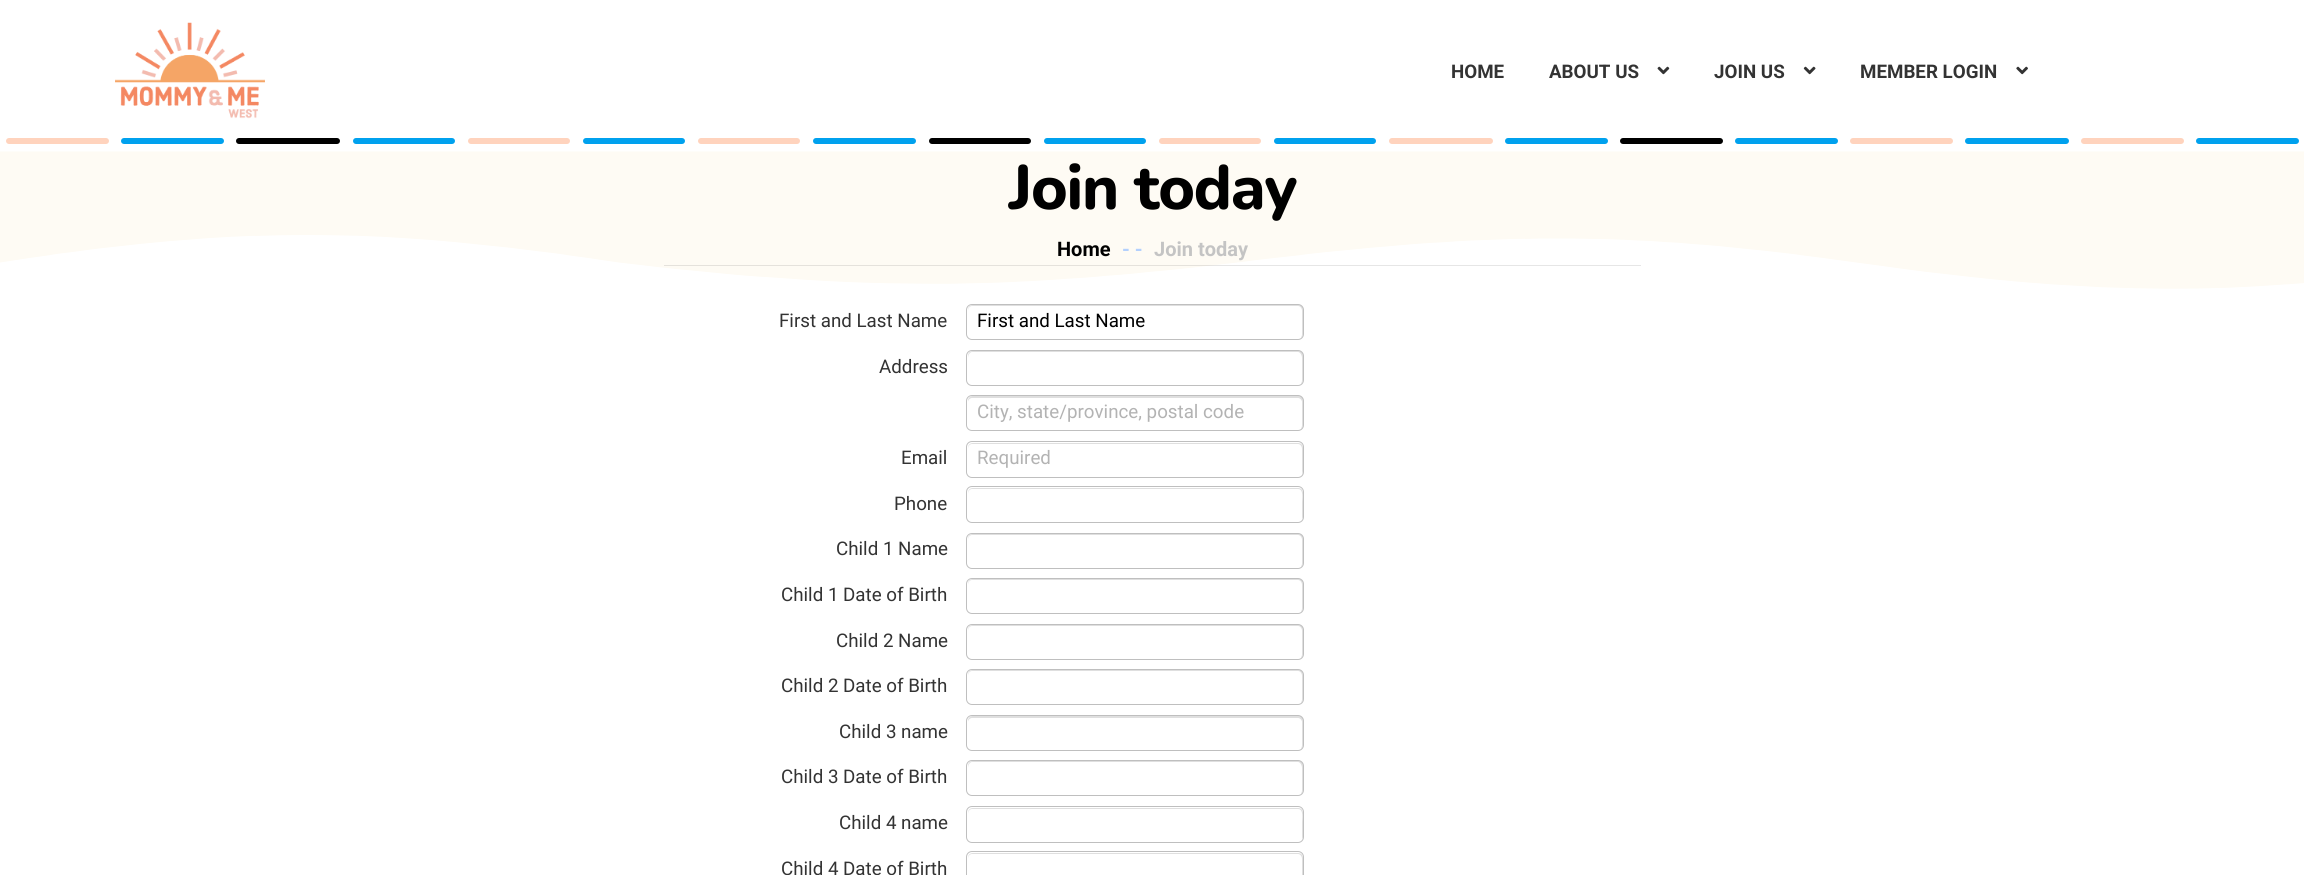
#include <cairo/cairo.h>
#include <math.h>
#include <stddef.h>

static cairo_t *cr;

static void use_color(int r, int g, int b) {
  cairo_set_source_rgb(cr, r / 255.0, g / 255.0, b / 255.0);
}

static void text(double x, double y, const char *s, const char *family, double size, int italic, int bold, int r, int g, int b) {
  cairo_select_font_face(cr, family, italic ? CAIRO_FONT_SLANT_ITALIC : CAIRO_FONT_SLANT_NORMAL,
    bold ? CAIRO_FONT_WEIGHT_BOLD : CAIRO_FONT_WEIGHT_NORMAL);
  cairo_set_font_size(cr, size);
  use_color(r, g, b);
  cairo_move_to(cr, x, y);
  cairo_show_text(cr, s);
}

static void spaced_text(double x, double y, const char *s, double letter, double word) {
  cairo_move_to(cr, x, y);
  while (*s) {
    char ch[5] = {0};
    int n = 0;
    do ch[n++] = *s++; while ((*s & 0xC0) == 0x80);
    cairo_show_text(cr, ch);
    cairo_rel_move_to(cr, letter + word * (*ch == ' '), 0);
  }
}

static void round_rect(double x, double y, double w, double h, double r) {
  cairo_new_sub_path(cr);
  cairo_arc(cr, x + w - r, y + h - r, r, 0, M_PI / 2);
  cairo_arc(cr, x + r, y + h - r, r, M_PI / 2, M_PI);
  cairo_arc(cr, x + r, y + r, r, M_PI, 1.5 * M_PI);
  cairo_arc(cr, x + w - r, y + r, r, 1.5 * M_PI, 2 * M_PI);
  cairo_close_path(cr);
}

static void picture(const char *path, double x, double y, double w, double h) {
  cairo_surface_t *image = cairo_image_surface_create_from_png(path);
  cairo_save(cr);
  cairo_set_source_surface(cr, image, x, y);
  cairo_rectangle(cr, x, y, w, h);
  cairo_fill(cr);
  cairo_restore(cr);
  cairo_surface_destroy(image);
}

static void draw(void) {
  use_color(255, 255, 255);
  cairo_paint(cr);
  picture("img_01.png", 115, 22, 150, 97);
  picture("img_02.png", 1657, 66, 13, 9);
  picture("img_03.png", 1803, 66, 13, 9);
  picture("img_04.png", 2016, 66, 12, 9);
  use_color(255, 211, 189);
  round_rect(6, 138, 103, 6, 3);
  cairo_fill(cr);
  use_color(0, 161, 238);
  round_rect(121, 138, 103, 6, 3);
  cairo_fill(cr);
  use_color(0, 0, 0);
  round_rect(236, 138, 104, 6, 3);
  cairo_fill(cr);
  use_color(0, 161, 238);
  round_rect(353, 138, 102, 6, 3);
  cairo_fill(cr);
  use_color(255, 211, 189);
  round_rect(468, 138, 102, 6, 3);
  cairo_fill(cr);
  use_color(0, 161, 238);
  round_rect(583, 138, 102, 6, 3);
  cairo_fill(cr);
  use_color(255, 211, 189);
  round_rect(698, 138, 102, 6, 3);
  cairo_fill(cr);
  use_color(0, 161, 238);
  round_rect(813, 138, 103, 6, 3);
  cairo_fill(cr);
  use_color(0, 0, 0);
  round_rect(929, 138, 102, 6, 3);
  cairo_fill(cr);
  use_color(0, 161, 238);
  round_rect(1044, 138, 102, 6, 3);
  cairo_fill(cr);
  use_color(255, 211, 189);
  round_rect(1159, 138, 102, 6, 3);
  cairo_fill(cr);
  use_color(0, 161, 238);
  round_rect(1274, 138, 102, 6, 3);
  cairo_fill(cr);
  use_color(255, 211, 189);
  round_rect(1389, 138, 104, 6, 3);
  cairo_fill(cr);
  use_color(0, 161, 238);
  round_rect(1505, 138, 103, 6, 3);
  cairo_fill(cr);
  use_color(0, 0, 0);
  round_rect(1620, 138, 103, 6, 3);
  cairo_fill(cr);
  use_color(0, 161, 238);
  round_rect(1735, 138, 103, 6, 3);
  cairo_fill(cr);
  use_color(255, 211, 189);
  round_rect(1850, 138, 103, 6, 3);
  cairo_fill(cr);
  use_color(0, 161, 238);
  round_rect(1965, 138, 104, 6, 3);
  cairo_fill(cr);
  use_color(255, 211, 189);
  round_rect(2081, 138, 103, 6, 3);
  cairo_fill(cr);
  use_color(0, 161, 238);
  round_rect(2196, 138, 103, 6, 3);
  cairo_fill(cr);
  picture("img_05.png", 0, 151, 2304, 138);
  cairo_set_source_rgba(cr, 0, 0, 0, 0.1);
  cairo_rectangle(cr, 664, 265, 977, 1);
  cairo_fill(cr);
  use_color(223, 223, 223);
  cairo_new_path(cr);
  cairo_move_to(cr, 972, 306);
  cairo_line_to(cr, 1298, 306);
  cairo_curve_to(cr, 1300, 306, 1302, 308, 1302, 311);
  cairo_line_to(cr, 1302, 335);
  cairo_line_to(cr, 1301, 338);
  cairo_curve_to(cr, 1302, 337, 1303, 335, 1303, 334);
  cairo_line_to(cr, 1303, 310);
  cairo_curve_to(cr, 1303, 307, 1301, 305, 1298, 305);
  cairo_line_to(cr, 973, 305);
  cairo_curve_to(cr, 970, 305, 968, 307, 968, 310);
  cairo_line_to(cr, 968, 311);
  cairo_curve_to(cr, 968, 308, 970, 306, 972, 306);
  cairo_close_path(cr);
  cairo_fill(cr);
  round_rect(966.5, 304.5, 337, 35, 5.5);
  cairo_set_source_rgba(cr, 0, 0, 0, 0.25);
  cairo_set_line_width(cr, 1);
  cairo_stroke(cr);
  use_color(223, 223, 223);
  cairo_new_path(cr);
  cairo_move_to(cr, 972, 352);
  cairo_line_to(cr, 1298, 352);
  cairo_curve_to(cr, 1300, 352, 1302, 355, 1302, 358);
  cairo_line_to(cr, 1302, 381);
  cairo_line_to(cr, 1301, 384);
  cairo_curve_to(cr, 1302, 383, 1303, 381, 1303, 380);
  cairo_line_to(cr, 1303, 356);
  cairo_curve_to(cr, 1303, 353, 1301, 351, 1298, 351);
  cairo_line_to(cr, 973, 351);
  cairo_curve_to(cr, 970, 351, 968, 353, 968, 356);
  cairo_line_to(cr, 968, 358);
  cairo_curve_to(cr, 968, 355, 970, 352, 972, 352);
  cairo_close_path(cr);
  cairo_fill(cr);
  round_rect(966.5, 350.5, 337, 35, 5.5);
  cairo_set_source_rgba(cr, 0, 0, 0, 0.25);
  cairo_stroke(cr);
  use_color(223, 223, 223);
  cairo_new_path(cr);
  cairo_move_to(cr, 972, 398);
  cairo_line_to(cr, 1298, 398);
  cairo_curve_to(cr, 1300, 398, 1302, 400, 1302, 402);
  cairo_line_to(cr, 1302, 426);
  cairo_line_to(cr, 1301, 429);
  cairo_curve_to(cr, 1302, 428, 1303, 426, 1303, 425);
  cairo_line_to(cr, 1303, 401);
  cairo_curve_to(cr, 1303, 398, 1301, 396, 1298, 396);
  cairo_line_to(cr, 973, 396);
  cairo_curve_to(cr, 970, 396, 968, 398, 968, 401);
  cairo_line_to(cr, 968, 402);
  cairo_curve_to(cr, 968, 400, 970, 398, 972, 398);
  cairo_close_path(cr);
  cairo_fill(cr);
  round_rect(966.5, 395.5, 337, 35, 5.5);
  cairo_set_source_rgba(cr, 0, 0, 0, 0.25);
  cairo_stroke(cr);
  use_color(223, 223, 223);
  cairo_new_path(cr);
  cairo_move_to(cr, 972, 444);
  cairo_line_to(cr, 1298, 444);
  cairo_curve_to(cr, 1300, 444, 1302, 446, 1302, 449);
  cairo_line_to(cr, 1302, 472);
  cairo_line_to(cr, 1302, 475);
  cairo_curve_to(cr, 1302, 474, 1303, 472, 1303, 471);
  cairo_line_to(cr, 1303, 448);
  cairo_curve_to(cr, 1303, 445, 1301, 443, 1298, 443);
  cairo_line_to(cr, 973, 443);
  cairo_curve_to(cr, 970, 443, 968, 445, 968, 448);
  cairo_line_to(cr, 968, 449);
  cairo_curve_to(cr, 968, 446, 970, 444, 972, 444);
  cairo_close_path(cr);
  cairo_fill(cr);
  round_rect(966.5, 441.5, 337, 36, 5.5);
  cairo_set_source_rgba(cr, 0, 0, 0, 0.25);
  cairo_stroke(cr);
  use_color(223, 223, 223);
  cairo_new_path(cr);
  cairo_move_to(cr, 972, 489);
  cairo_line_to(cr, 1298, 489);
  cairo_curve_to(cr, 1304, 489, 1302, 499, 1302, 502);
  cairo_line_to(cr, 1302, 519);
  cairo_curve_to(cr, 1303, 518, 1303, 517, 1303, 516);
  cairo_line_to(cr, 1303, 493);
  cairo_curve_to(cr, 1303, 490, 1301, 488, 1298, 488);
  cairo_line_to(cr, 973, 488);
  cairo_curve_to(cr, 970, 488, 968, 490, 968, 493);
  cairo_line_to(cr, 968, 494);
  cairo_curve_to(cr, 968, 491, 970, 489, 972, 489);
  cairo_close_path(cr);
  cairo_fill(cr);
  round_rect(966.5, 486.5, 337, 36, 5.5);
  use_color(191, 191, 191);
  cairo_stroke(cr);
  use_color(223, 223, 223);
  cairo_new_path(cr);
  cairo_move_to(cr, 972, 535);
  cairo_line_to(cr, 1298, 535);
  cairo_curve_to(cr, 1300, 535, 1302, 537, 1302, 540);
  cairo_line_to(cr, 1302, 564);
  cairo_line_to(cr, 1301, 567);
  cairo_curve_to(cr, 1302, 566, 1303, 564, 1303, 563);
  cairo_line_to(cr, 1303, 539);
  cairo_curve_to(cr, 1303, 536, 1301, 534, 1298, 534);
  cairo_line_to(cr, 973, 534);
  cairo_curve_to(cr, 970, 534, 968, 536, 968, 539);
  cairo_line_to(cr, 968, 540);
  cairo_curve_to(cr, 968, 537, 970, 535, 972, 535);
  cairo_close_path(cr);
  cairo_fill(cr);
  round_rect(966.5, 533.5, 337, 35, 5.5);
  cairo_set_source_rgba(cr, 0, 0, 0, 0.25);
  cairo_stroke(cr);
  use_color(223, 223, 223);
  cairo_new_path(cr);
  cairo_move_to(cr, 972, 580);
  cairo_line_to(cr, 1298, 580);
  cairo_curve_to(cr, 1300, 580, 1302, 582, 1302, 585);
  cairo_line_to(cr, 1302, 609);
  cairo_line_to(cr, 1301, 612);
  cairo_curve_to(cr, 1302, 611, 1303, 609, 1303, 608);
  cairo_line_to(cr, 1303, 584);
  cairo_curve_to(cr, 1303, 581, 1301, 579, 1298, 579);
  cairo_line_to(cr, 973, 579);
  cairo_curve_to(cr, 970, 579, 968, 581, 968, 584);
  cairo_line_to(cr, 968, 585);
  cairo_curve_to(cr, 968, 582, 970, 580, 972, 580);
  cairo_close_path(cr);
  cairo_fill(cr);
  round_rect(966.5, 578.5, 337, 35, 5.5);
  cairo_set_source_rgba(cr, 0, 0, 0, 0.25);
  cairo_stroke(cr);
  use_color(223, 223, 223);
  cairo_new_path(cr);
  cairo_move_to(cr, 972, 626);
  cairo_line_to(cr, 1298, 626);
  cairo_curve_to(cr, 1300, 626, 1302, 628, 1302, 631);
  cairo_line_to(cr, 1302, 655);
  cairo_line_to(cr, 1301, 658);
  cairo_curve_to(cr, 1302, 657, 1303, 655, 1303, 654);
  cairo_line_to(cr, 1303, 630);
  cairo_curve_to(cr, 1303, 627, 1301, 625, 1298, 625);
  cairo_line_to(cr, 973, 625);
  cairo_curve_to(cr, 970, 625, 968, 627, 968, 630);
  cairo_line_to(cr, 968, 631);
  cairo_curve_to(cr, 968, 628, 970, 626, 972, 626);
  cairo_close_path(cr);
  cairo_fill(cr);
  round_rect(966.5, 624.5, 337, 35, 5.5);
  cairo_set_source_rgba(cr, 0, 0, 0, 0.25);
  cairo_stroke(cr);
  use_color(223, 223, 223);
  cairo_new_path(cr);
  cairo_move_to(cr, 972, 671);
  cairo_line_to(cr, 1298, 671);
  cairo_curve_to(cr, 1300, 671, 1302, 673, 1302, 676);
  cairo_line_to(cr, 1302, 700);
  cairo_line_to(cr, 1301, 703);
  cairo_curve_to(cr, 1302, 702, 1303, 700, 1303, 699);
  cairo_line_to(cr, 1303, 675);
  cairo_curve_to(cr, 1303, 672, 1301, 670, 1298, 670);
  cairo_line_to(cr, 973, 670);
  cairo_curve_to(cr, 970, 670, 968, 672, 968, 675);
  cairo_line_to(cr, 968, 676);
  cairo_curve_to(cr, 968, 673, 970, 671, 972, 671);
  cairo_close_path(cr);
  cairo_fill(cr);
  round_rect(966.5, 669.5, 337, 35, 5.5);
  cairo_set_source_rgba(cr, 0, 0, 0, 0.25);
  cairo_stroke(cr);
  use_color(223, 223, 223);
  cairo_new_path(cr);
  cairo_move_to(cr, 972, 718);
  cairo_line_to(cr, 1298, 718);
  cairo_curve_to(cr, 1300, 718, 1302, 720, 1302, 722);
  cairo_line_to(cr, 1302, 746);
  cairo_line_to(cr, 1301, 749);
  cairo_curve_to(cr, 1302, 748, 1303, 746, 1303, 745);
  cairo_line_to(cr, 1303, 721);
  cairo_curve_to(cr, 1303, 718, 1301, 716, 1298, 716);
  cairo_line_to(cr, 973, 716);
  cairo_curve_to(cr, 970, 716, 968, 718, 968, 721);
  cairo_line_to(cr, 968, 722);
  cairo_curve_to(cr, 968, 720, 970, 718, 972, 718);
  cairo_close_path(cr);
  cairo_fill(cr);
  round_rect(966.5, 715.5, 337, 35, 5.5);
  cairo_set_source_rgba(cr, 0, 0, 0, 0.25);
  cairo_stroke(cr);
  use_color(223, 223, 223);
  cairo_new_path(cr);
  cairo_move_to(cr, 972, 762);
  cairo_line_to(cr, 1298, 762);
  cairo_curve_to(cr, 1300, 762, 1302, 765, 1302, 768);
  cairo_line_to(cr, 1302, 791);
  cairo_line_to(cr, 1301, 794);
  cairo_curve_to(cr, 1302, 793, 1303, 791, 1303, 790);
  cairo_line_to(cr, 1303, 766);
  cairo_curve_to(cr, 1303, 763, 1301, 761, 1298, 761);
  cairo_line_to(cr, 973, 761);
  cairo_curve_to(cr, 970, 761, 968, 763, 968, 766);
  cairo_line_to(cr, 968, 768);
  cairo_curve_to(cr, 968, 765, 970, 762, 972, 762);
  cairo_close_path(cr);
  cairo_fill(cr);
  round_rect(966.5, 760.5, 337, 35, 5.5);
  cairo_set_source_rgba(cr, 0, 0, 0, 0.25);
  cairo_stroke(cr);
  use_color(223, 223, 223);
  cairo_new_path(cr);
  cairo_move_to(cr, 972, 809);
  cairo_line_to(cr, 1298, 809);
  cairo_curve_to(cr, 1304, 809, 1302, 819, 1302, 822);
  cairo_line_to(cr, 1302, 839);
  cairo_curve_to(cr, 1303, 838, 1303, 837, 1303, 836);
  cairo_line_to(cr, 1303, 813);
  cairo_curve_to(cr, 1303, 810, 1301, 808, 1298, 808);
  cairo_line_to(cr, 973, 808);
  cairo_curve_to(cr, 970, 808, 968, 810, 968, 813);
  cairo_line_to(cr, 968, 814);
  cairo_curve_to(cr, 968, 811, 970, 809, 972, 809);
  cairo_close_path(cr);
  cairo_fill(cr);
  round_rect(966.5, 806.5, 337, 36, 5.5);
  use_color(191, 191, 191);
  cairo_stroke(cr);
  use_color(223, 223, 223);
  cairo_new_path(cr);
  cairo_move_to(cr, 972, 854);
  cairo_line_to(cr, 1298, 854);
  cairo_curve_to(cr, 1300, 854, 1302, 856, 1302, 859);
  cairo_line_to(cr, 1302, 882);
  cairo_line_to(cr, 1302, 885);
  cairo_curve_to(cr, 1302, 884, 1303, 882, 1303, 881);
  cairo_line_to(cr, 1303, 858);
  cairo_curve_to(cr, 1303, 855, 1301, 853, 1298, 853);
  cairo_line_to(cr, 973, 853);
  cairo_curve_to(cr, 970, 853, 968, 855, 968, 858);
  cairo_line_to(cr, 968, 859);
  cairo_curve_to(cr, 968, 856, 970, 854, 972, 854);
  cairo_close_path(cr);
  cairo_fill(cr);
  round_rect(966.5, 851.5, 337, 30, 5.5);
  use_color(191, 191, 191);
  cairo_stroke(cr);
  text(1451, 78, "HOME", "Roboto", 18.75, 0, 1, 51, 51, 51);
  text(1549, 78, "ABOUT US", "Roboto", 18.75, 0, 1, 51, 51, 51);
  text(1714, 78, "JOIN US", "Roboto", 18.75, 0, 1, 51, 51, 51);
  text(1860, 78, "MEMBER LOGIN", "Roboto", 18.75, 0, 1, 51, 51, 51);
  cairo_select_font_face(cr, "Nunito ExtraBold", CAIRO_FONT_SLANT_NORMAL, CAIRO_FONT_WEIGHT_NORMAL);
  cairo_set_font_size(cr, 62.5);
  use_color(0, 0, 0);
  spaced_text(1009, 209, "Join today", -1.25, 0);
  text(1057, 256, "Home", "Roboto", 20, 0, 1, 0, 0, 0);
  text(1122, 256, "- -", "Roboto", 20, 0, 1, 179, 208, 253);
  text(1154, 256, "Join today", "Roboto", 20, 0, 1, 196, 196, 196);
  text(779, 327, "First and Last Name", "Roboto", 18.75, 0, 0, 51, 51, 51);
  text(977, 327, "First and Last Name", "Roboto", 18.75, 0, 0, 0, 0, 0);
  text(879, 373, "Address", "Roboto", 18.75, 0, 0, 51, 51, 51);
  text(977, 418, "City, state/province, postal code", "Roboto", 18.75, 0, 0, 179, 179, 179);
  text(901, 464, "Email", "Roboto", 18.75, 0, 0, 51, 51, 51);
  text(977, 464, "Required", "Roboto", 18.75, 0, 0, 179, 179, 179);
  text(894, 510, "Phone", "Roboto", 18.75, 0, 0, 51, 51, 51);
  text(836, 555, "Child 1 Name", "Roboto", 18.75, 0, 0, 51, 51, 51);
  text(781, 601, "Child 1 Date of Birth", "Roboto", 18.75, 0, 0, 51, 51, 51);
  text(836, 647, "Child 2 Name", "Roboto", 18.75, 0, 0, 51, 51, 51);
  text(781, 692, "Child 2 Date of Birth", "Roboto", 18.75, 0, 0, 51, 51, 51);
  text(839, 738, "Child 3 name", "Roboto", 18.75, 0, 0, 51, 51, 51);
  text(781, 783, "Child 3 Date of Birth", "Roboto", 18.75, 0, 0, 51, 51, 51);
  text(839, 829, "Child 4 name", "Roboto", 18.75, 0, 0, 51, 51, 51);
  text(781, 875, "Child 4 Date of Birth", "Roboto", 18.75, 0, 0, 51, 51, 51);
}

int main(void) {
  cairo_surface_t *surface = cairo_image_surface_create(CAIRO_FORMAT_RGB24, 2304, 875);
  cr = cairo_create(surface);
  cairo_font_options_t *options = cairo_font_options_create();
  cairo_font_options_set_hint_metrics(options, CAIRO_HINT_METRICS_OFF);
  cairo_font_options_set_hint_style(options, CAIRO_HINT_STYLE_NONE);
  cairo_set_font_options(cr, options);
  cairo_set_miter_limit(cr, 4);
  draw();
  cairo_surface_write_to_png(surface, "out.png");
  cairo_font_options_destroy(options);
  cairo_destroy(cr);
  cairo_surface_destroy(surface);
  return 0;
}
